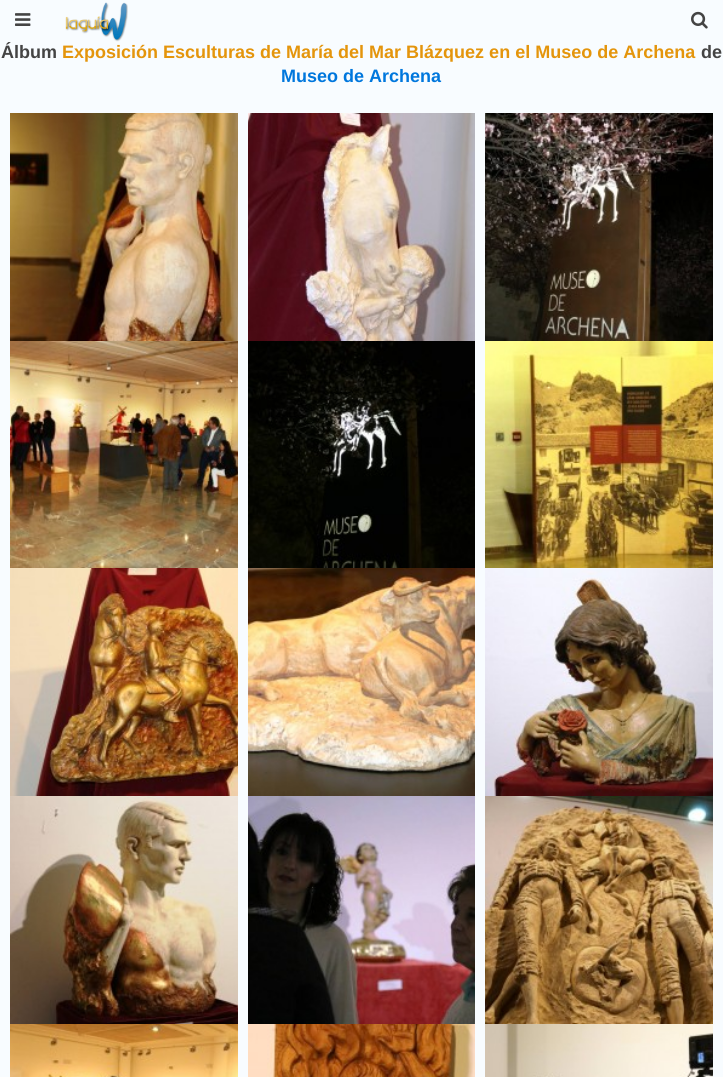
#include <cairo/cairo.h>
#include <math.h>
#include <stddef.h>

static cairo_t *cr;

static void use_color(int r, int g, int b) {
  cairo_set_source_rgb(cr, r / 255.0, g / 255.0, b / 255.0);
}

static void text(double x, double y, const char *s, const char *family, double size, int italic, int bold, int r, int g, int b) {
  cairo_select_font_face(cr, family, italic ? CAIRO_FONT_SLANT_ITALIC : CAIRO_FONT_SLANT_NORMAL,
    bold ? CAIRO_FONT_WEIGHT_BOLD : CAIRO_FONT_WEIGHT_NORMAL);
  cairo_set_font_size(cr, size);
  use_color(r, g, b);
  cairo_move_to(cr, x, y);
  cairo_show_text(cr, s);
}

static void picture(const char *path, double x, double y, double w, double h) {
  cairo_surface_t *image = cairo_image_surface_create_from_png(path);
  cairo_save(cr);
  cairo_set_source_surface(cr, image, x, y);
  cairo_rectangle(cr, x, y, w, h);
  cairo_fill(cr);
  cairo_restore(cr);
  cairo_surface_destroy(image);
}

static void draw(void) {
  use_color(248, 252, 255);
  cairo_paint(cr);
  picture("img_01.png", 15, 13, 16, 13);
  picture("img_02.png", 65, 2, 63, 40);
  picture("img_03.png", 691, 11, 17, 18);
  picture("img_04.png", 10, 113, 228, 228);
  picture("img_05.png", 248, 113, 227, 228);
  picture("img_06.png", 485, 113, 228, 228);
  picture("img_07.png", 10, 341, 228, 227);
  picture("img_08.png", 248, 341, 227, 227);
  picture("img_09.png", 485, 341, 228, 227);
  picture("img_10.png", 10, 568, 228, 228);
  picture("img_11.png", 248, 568, 227, 228);
  picture("img_12.png", 485, 568, 228, 228);
  picture("img_13.png", 10, 796, 228, 228);
  picture("img_14.png", 248, 796, 227, 228);
  picture("img_15.png", 485, 796, 228, 228);
  picture("img_16.png", 10, 1024, 228, 53);
  picture("img_17.png", 248, 1024, 227, 53);
  picture("img_18.png", 485, 1024, 228, 53);
  text(1, 58, "Álbum", "Liberation Sans", 18, 0, 1, 68, 68, 68);
  text(62, 58, "Exposición Esculturas de María del Mar Blázquez en el Museo de Archena", "Liberation Sans", 18, 0, 1, 228, 149, 12);
  text(701, 58, "de", "Liberation Sans", 18, 0, 1, 68, 68, 68);
  text(281, 82, "Museo de Archena", "Liberation Sans", 18, 0, 1, 0, 119, 221);
}

int main(void) {
  cairo_surface_t *surface = cairo_image_surface_create(CAIRO_FORMAT_RGB24, 723, 1077);
  cr = cairo_create(surface);
  cairo_font_options_t *options = cairo_font_options_create();
  cairo_font_options_set_hint_metrics(options, CAIRO_HINT_METRICS_OFF);
  cairo_font_options_set_hint_style(options, CAIRO_HINT_STYLE_NONE);
  cairo_set_font_options(cr, options);
  cairo_set_miter_limit(cr, 4);
  draw();
  cairo_surface_write_to_png(surface, "out.png");
  cairo_font_options_destroy(options);
  cairo_destroy(cr);
  cairo_surface_destroy(surface);
  return 0;
}
